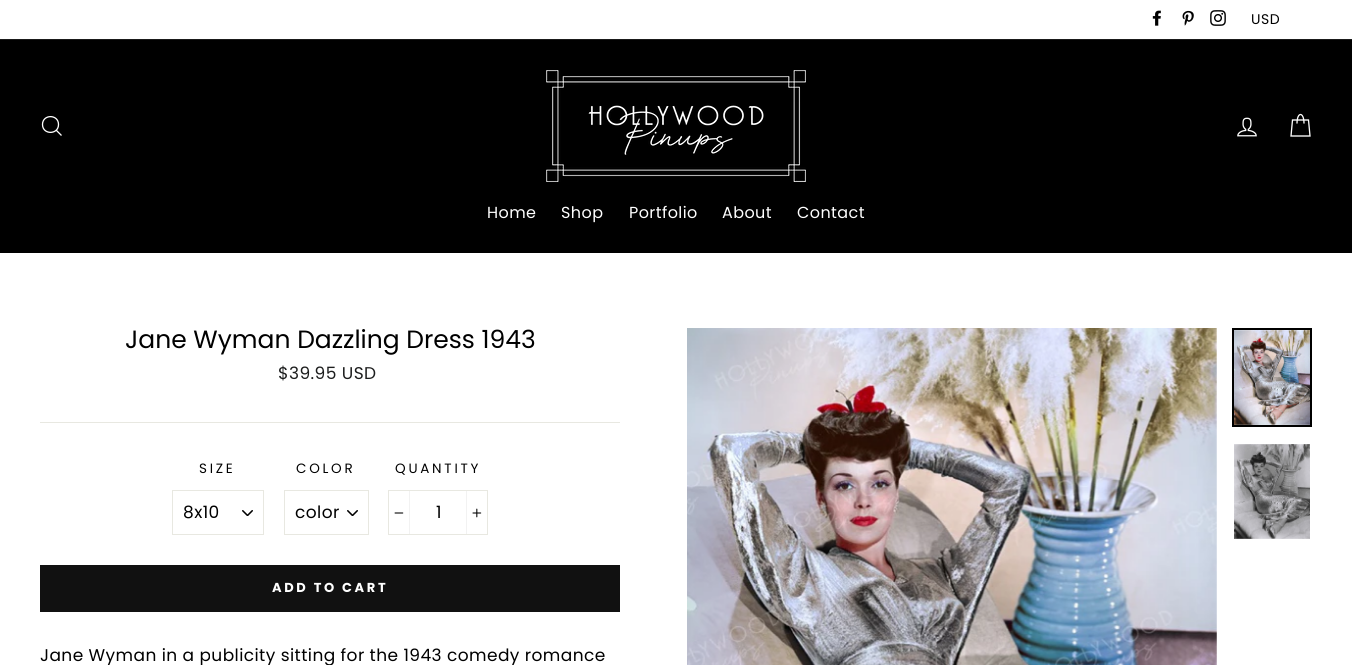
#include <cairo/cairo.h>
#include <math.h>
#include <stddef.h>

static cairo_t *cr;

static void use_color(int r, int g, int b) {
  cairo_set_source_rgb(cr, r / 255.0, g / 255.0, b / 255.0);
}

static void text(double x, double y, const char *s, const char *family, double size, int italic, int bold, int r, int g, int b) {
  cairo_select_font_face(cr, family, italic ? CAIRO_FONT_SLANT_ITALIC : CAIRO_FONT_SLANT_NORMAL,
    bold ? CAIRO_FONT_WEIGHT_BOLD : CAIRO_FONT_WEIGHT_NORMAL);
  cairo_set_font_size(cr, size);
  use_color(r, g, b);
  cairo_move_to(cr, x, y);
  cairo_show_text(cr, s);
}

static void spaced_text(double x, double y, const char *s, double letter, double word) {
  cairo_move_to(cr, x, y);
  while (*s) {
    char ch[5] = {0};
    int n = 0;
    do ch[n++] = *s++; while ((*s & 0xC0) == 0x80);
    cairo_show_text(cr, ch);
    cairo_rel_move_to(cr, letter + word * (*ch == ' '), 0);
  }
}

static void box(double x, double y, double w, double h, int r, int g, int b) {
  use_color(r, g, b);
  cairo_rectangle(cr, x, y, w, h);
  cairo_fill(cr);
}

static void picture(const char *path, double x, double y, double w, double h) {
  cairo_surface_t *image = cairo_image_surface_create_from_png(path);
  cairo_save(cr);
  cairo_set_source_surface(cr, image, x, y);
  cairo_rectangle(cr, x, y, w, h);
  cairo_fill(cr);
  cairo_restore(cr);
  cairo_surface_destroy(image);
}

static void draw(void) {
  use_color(255, 255, 255);
  cairo_paint(cr);
  picture("img_01.png", 1152, 10, 9, 16);
  picture("img_02.png", 1182, 10, 12, 16);
  picture("img_03.png", 1210, 10, 16, 16);
  box(0, 40, 1352, 213, 0, 0, 0);
  box(0, 39, 1352, 1, 26, 26, 26);
  cairo_new_path(cr);
  cairo_move_to(cr, 58.5, 124.5);
  cairo_curve_to(cr, 58.5, 135, 42.5, 135, 42.5, 124.5);
  cairo_curve_to(cr, 42.5, 114, 58.5, 114, 58.5, 124.5);
  cairo_close_path(cr);
  cairo_move_to(cr, 61.5, 135.5);
  cairo_line_to(cr, 56.5, 130.5);
  use_color(255, 255, 255);
  cairo_set_line_width(cr, 1.3);
  cairo_stroke(cr);
  picture("img_04.png", 546, 70, 260, 112);
  picture("img_05.png", 1237, 117, 20, 20);
  cairo_new_path(cr);
  cairo_move_to(cr, 1297, 123.5);
  cairo_curve_to(cr, 1297, 111.5, 1304, 111.5, 1304, 123.5);
  cairo_move_to(cr, 1292.5, 120);
  cairo_line_to(cr, 1308.5, 120);
  cairo_line_to(cr, 1310, 136);
  cairo_line_to(cr, 1291, 136);
  cairo_close_path(cr);
  cairo_stroke(cr);
  box(40, 422, 580, 1, 232, 232, 225);
  picture("img_06.png", 242, 510, 11, 6);
  cairo_rectangle(cr, 172.5, 490.5, 91, 44);
  cairo_set_line_width(cr, 1);
  cairo_stroke(cr);
  picture("img_06.png", 347, 510, 11, 6);
  cairo_rectangle(cr, 284.5, 490.5, 84, 44);
  cairo_stroke(cr);
  cairo_rectangle(cr, 388.5, 490.5, 99, 44);
  cairo_stroke(cr);
  box(409, 491, 1, 43, 242, 242, 242);
  picture("img_07.png", 394, 512, 10, 2);
  box(466, 491, 1, 43, 242, 242, 242);
  picture("img_08.png", 472, 508, 10, 10);
  box(40, 565, 580, 47, 17, 17, 17);
  picture("img_09.png", 687, 328, 530, 337);
  cairo_rectangle(cr, 1233, 329, 78, 97);
  use_color(0, 0, 0);
  cairo_set_line_width(cr, 2);
  cairo_stroke(cr);
  picture("img_10.png", 1234, 330, 76, 95);
  picture("img_11.png", 1234, 444, 76, 95);
  cairo_select_font_face(cr, "Poppins", CAIRO_FONT_SLANT_NORMAL, CAIRO_FONT_WEIGHT_NORMAL);
  cairo_set_font_size(cr, 14);
  spaced_text(1251, 24, "USD", 0.5, 0);
  cairo_set_font_size(cr, 16);
  use_color(255, 255, 255);
  spaced_text(487, 218, "Home", 0.42, 0);
  spaced_text(561, 218, "Shop", 0.42, 0);
  spaced_text(629, 218, "Portfolio", 0.42, 0);
  spaced_text(722, 218, "About", 0.42, 0);
  spaced_text(797, 218, "Contact", 0.42, 0);
  text(125, 348, "Jane Wyman Dazzling Dress 1943", "Poppins", 25, 0, 0, 0, 0, 0);
  cairo_set_font_size(cr, 17);
  use_color(28, 29, 29);
  spaced_text(278, 379, "$39.95 USD", 0.42, 0);
  cairo_set_font_size(cr, 13.5);
  use_color(0, 0, 0);
  spaced_text(199, 473, "SIZE", 2.75, 0);
  cairo_set_font_size(cr, 17);
  spaced_text(183, 518, "8x10", 0.42, 0);
  cairo_set_font_size(cr, 13.5);
  spaced_text(296, 473, "COLOR", 2.75, 0);
  cairo_set_font_size(cr, 17);
  spaced_text(295, 518, "color", 0.42, 0);
  cairo_set_font_size(cr, 13.5);
  spaced_text(395, 473, "QUANTITY", 2.75, 0);
  cairo_set_font_size(cr, 17);
  spaced_text(436, 518, "1", 0.42, 0);
  cairo_select_font_face(cr, "Poppins", CAIRO_FONT_SLANT_NORMAL, CAIRO_FONT_WEIGHT_BOLD);
  cairo_set_font_size(cr, 13);
  use_color(255, 255, 255);
  spaced_text(272, 592, "ADD TO CART", 2.6, 0);
  cairo_select_font_face(cr, "Poppins", CAIRO_FONT_SLANT_NORMAL, CAIRO_FONT_WEIGHT_NORMAL);
  cairo_set_font_size(cr, 17);
  use_color(0, 0, 0);
  spaced_text(40, 661, "Jane Wyman in a publicity sitting for the 1943 comedy romance", 0.42, 0);
}

int main(void) {
  cairo_surface_t *surface = cairo_image_surface_create(CAIRO_FORMAT_RGB24, 1352, 665);
  cr = cairo_create(surface);
  cairo_font_options_t *options = cairo_font_options_create();
  cairo_font_options_set_hint_metrics(options, CAIRO_HINT_METRICS_OFF);
  cairo_font_options_set_hint_style(options, CAIRO_HINT_STYLE_NONE);
  cairo_set_font_options(cr, options);
  cairo_set_miter_limit(cr, 4);
  draw();
  cairo_surface_write_to_png(surface, "out.png");
  cairo_font_options_destroy(options);
  cairo_destroy(cr);
  cairo_surface_destroy(surface);
  return 0;
}
